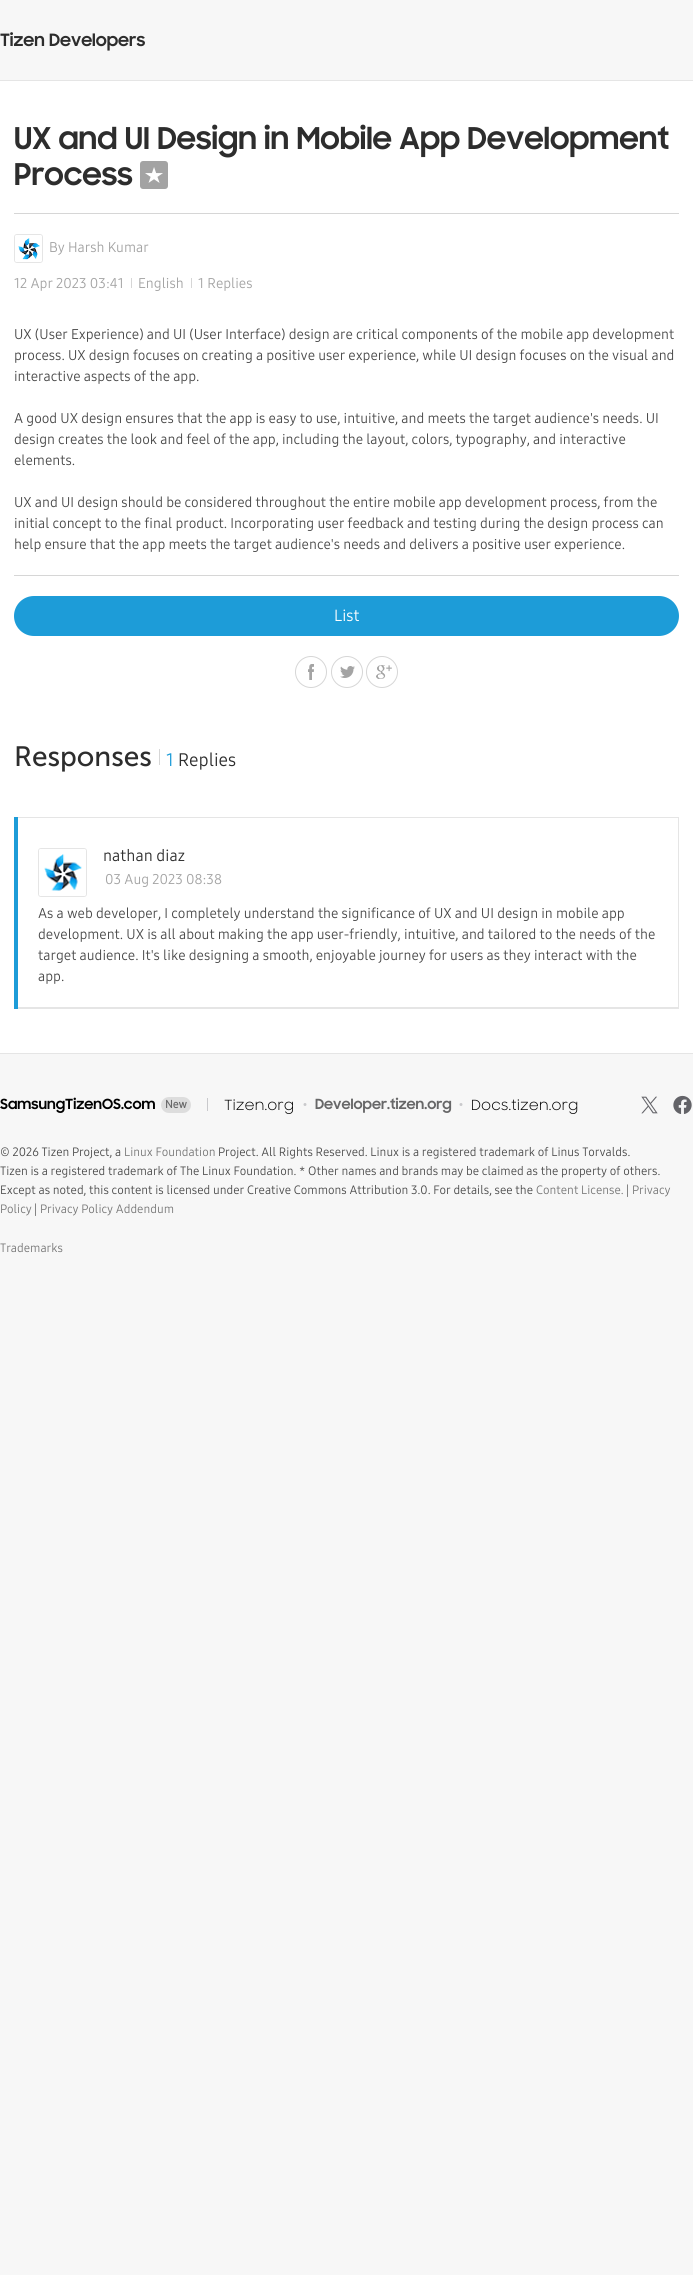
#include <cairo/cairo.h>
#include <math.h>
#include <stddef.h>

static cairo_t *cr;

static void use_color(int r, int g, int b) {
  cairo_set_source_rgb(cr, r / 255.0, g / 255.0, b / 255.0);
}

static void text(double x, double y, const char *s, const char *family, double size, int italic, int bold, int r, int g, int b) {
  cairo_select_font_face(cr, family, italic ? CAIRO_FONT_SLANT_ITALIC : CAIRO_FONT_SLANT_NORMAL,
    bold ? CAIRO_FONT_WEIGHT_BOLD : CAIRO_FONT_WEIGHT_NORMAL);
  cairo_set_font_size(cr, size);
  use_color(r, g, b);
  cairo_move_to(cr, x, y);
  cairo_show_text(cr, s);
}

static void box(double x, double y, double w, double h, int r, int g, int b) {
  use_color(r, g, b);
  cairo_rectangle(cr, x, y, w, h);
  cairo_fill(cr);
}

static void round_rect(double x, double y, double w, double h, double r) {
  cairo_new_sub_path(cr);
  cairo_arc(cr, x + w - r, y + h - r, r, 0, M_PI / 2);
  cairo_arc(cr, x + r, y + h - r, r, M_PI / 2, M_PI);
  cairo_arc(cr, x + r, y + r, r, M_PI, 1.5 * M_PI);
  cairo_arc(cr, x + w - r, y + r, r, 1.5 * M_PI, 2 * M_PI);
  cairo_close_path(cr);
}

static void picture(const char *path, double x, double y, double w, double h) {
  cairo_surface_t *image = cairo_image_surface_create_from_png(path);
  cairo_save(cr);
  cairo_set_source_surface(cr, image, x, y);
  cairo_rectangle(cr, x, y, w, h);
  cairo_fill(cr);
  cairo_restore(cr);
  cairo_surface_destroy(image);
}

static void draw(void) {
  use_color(247, 247, 247);
  cairo_paint(cr);
  box(0, 81, 693, 972, 255, 255, 255);
  box(0, 80, 693, 1, 229, 229, 229);
  use_color(163, 163, 163);
  round_rect(140, 161, 28, 28, 3);
  cairo_fill(cr);
  picture("img_01.png", 145, 167, 18, 16);
  box(14, 213, 665, 1, 214, 214, 214);
  round_rect(14.5, 234.5, 28, 28, 2.5);
  use_color(229, 229, 229);
  cairo_set_line_width(cr, 1);
  cairo_stroke(cr);
  picture("img_02.png", 15, 235, 27, 27);
  box(131, 278, 1, 10, 214, 214, 214);
  box(191, 278, 1, 10, 214, 214, 214);
  box(14, 575, 665, 1, 214, 214, 214);
  use_color(29, 156, 216);
  round_rect(14, 596, 665, 40, 20);
  cairo_fill(cr);
  picture("img_03.png", 308, 664, 6, 16);
  cairo_arc(cr, 311, 672, 15.5, 0, 2 * M_PI);
  use_color(214, 214, 214);
  cairo_stroke(cr);
  picture("img_04.png", 340, 666, 15, 12);
  cairo_arc(cr, 347, 672, 15.5, 0, 2 * M_PI);
  cairo_stroke(cr);
  picture("img_05.png", 376, 665, 16, 14);
  cairo_arc(cr, 382, 672, 15.5, 0, 2 * M_PI);
  cairo_stroke(cr);
  box(159, 749, 1, 16, 214, 214, 214);
  box(14, 817, 4, 192, 29, 156, 216);
  box(18, 817, 661, 1, 229, 229, 229);
  box(678, 817, 1, 192, 229, 229, 229);
  box(18, 1008, 661, 1, 229, 229, 229);
  round_rect(38.5, 848.5, 48, 48, 2.5);
  cairo_stroke(cr);
  picture("img_06.png", 39, 849, 47, 47);
  box(18, 1007, 660, 1, 229, 229, 229);
  box(0, 1053, 693, 1, 229, 229, 229);
  use_color(221, 221, 221);
  round_rect(161, 1097, 30, 16, 8);
  cairo_fill(cr);
  box(207, 1098, 1, 13, 201, 201, 204);
  picture("img_07.png", 224, 1099, 69, 15);
  cairo_arc(cr, 305, 1104.5, 1.5, 0, 2 * M_PI);
  cairo_fill(cr);
  cairo_arc(cr, 461, 1104.5, 1.5, 0, 2 * M_PI);
  cairo_fill(cr);
  picture("img_08.png", 472, 1099, 106, 15);
  picture("img_09.png", 641, 1096, 17, 18);
  picture("img_10.png", 673, 1095, 19, 19);
  text(0, 46, "Tizen Developers", "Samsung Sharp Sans", 17, 0, 1, 45, 45, 45);
  text(14, 149, "UX and UI Design in Mobile App Development", "Samsung Sharp Sans", 30, 0, 1, 45, 45, 45);
  text(14, 185, "Process", "Samsung Sharp Sans", 30, 0, 1, 45, 45, 45);
  text(49, 252, "By Harsh Kumar", "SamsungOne", 14, 0, 0, 163, 163, 163);
  text(14, 288, "12 Apr 2023 03:41", "SamsungOne", 14, 0, 0, 163, 163, 163);
  text(138, 288, "English", "SamsungOne", 14, 0, 0, 163, 163, 163);
  text(198, 288, "1 Replies", "SamsungOne", 14, 0, 0, 163, 163, 163);
  text(14, 339, "UX (User Experience) and UI (User Interface) design are critical components of the mobile app development", "SamsungOne", 14, 0, 0, 73, 73, 73);
  text(14, 360, "process. UX design focuses on creating a positive user experience, while UI design focuses on the visual and", "SamsungOne", 14, 0, 0, 73, 73, 73);
  text(14, 381, "interactive aspects of the app.", "SamsungOne", 14, 0, 0, 73, 73, 73);
  text(14, 423, "A good UX design ensures that the app is easy to use, intuitive, and meets the target audience's needs. UI", "SamsungOne", 14, 0, 0, 73, 73, 73);
  text(14, 444, "design creates the look and feel of the app, including the layout, colors, typography, and interactive", "SamsungOne", 14, 0, 0, 73, 73, 73);
  text(14, 465, "elements.", "SamsungOne", 14, 0, 0, 73, 73, 73);
  text(14, 507, "UX and UI design should be considered throughout the entire mobile app development process, from the", "SamsungOne", 14, 0, 0, 73, 73, 73);
  text(14, 528, "initial concept to the final product. Incorporating user feedback and testing during the design process can", "SamsungOne", 14, 0, 0, 73, 73, 73);
  text(14, 549, "help ensure that the app meets the target audience's needs and delivers a positive user experience.", "SamsungOne", 14, 0, 0, 73, 73, 73);
  text(334, 621, "List", "SamsungOne", 16, 0, 0, 255, 255, 255);
  text(14, 766, "Responses", "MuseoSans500", 28, 0, 0, 45, 45, 45);
  text(166, 766, "1", "SamsungOne", 18, 0, 0, 29, 156, 216);
  text(178, 766, "Replies", "SamsungOne", 18, 0, 0, 45, 45, 45);
  text(103, 861, "nathan diaz", "SamsungOne", 16, 0, 0, 45, 45, 45);
  text(105, 884, "03 Aug 2023 08:38", "SamsungOne", 14, 0, 0, 163, 163, 163);
  text(38, 918, "As a web developer, I completely understand the significance of UX and UI design in mobile app", "SamsungOne", 14, 0, 0, 73, 73, 73);
  text(38, 939, "development. UX is all about making the app user-friendly, intuitive, and tailored to the needs of the", "SamsungOne", 14, 0, 0, 73, 73, 73);
  text(38, 960, "target audience. It's like designing a smooth, enjoyable journey for users as they interact with the", "SamsungOne", 14, 0, 0, 73, 73, 73);
  text(38, 981, "app.", "SamsungOne", 14, 0, 0, 73, 73, 73);
  text(0, 1109, "SamsungTizenOS.com", "Samsung Sharp Sans", 14, 0, 1, 0, 0, 0);
  text(165, 1108, "New", "SamsungOne", 11, 0, 1, 103, 103, 104);
  text(315, 1109, "Developer.tizen.org", "Samsung Sharp Sans", 14, 0, 1, 103, 103, 104);
  text(0, 1156, "© 2026 Tizen Project, a", "SamsungOne", 12, 0, 0, 73, 73, 73);
  text(124, 1156, "Linux Foundation", "SamsungOne", 12, 0, 0, 118, 118, 118);
  text(218, 1156, "Project. All Rights Reserved. Linux is a registered trademark of Linus Torvalds.", "SamsungOne", 12, 0, 0, 73, 73, 73);
  text(0, 1175, "Tizen is a registered trademark of The Linux Foundation. * Other names and brands may be claimed as the property of others.", "SamsungOne", 12, 0, 0, 73, 73, 73);
  text(0, 1194, "Except as noted, this content is licensed under Creative Commons Attribution 3.0. For details, see the", "SamsungOne", 12, 0, 0, 73, 73, 73);
  text(536, 1194, "Content License.", "SamsungOne", 12, 0, 0, 118, 118, 118);
  text(626, 1194, "|", "SamsungOne", 12, 0, 0, 73, 73, 73);
  text(632, 1194, "Privacy", "SamsungOne", 12, 0, 0, 118, 118, 118);
  text(0, 1213, "Policy", "SamsungOne", 12, 0, 0, 118, 118, 118);
  text(34, 1213, "|", "SamsungOne", 12, 0, 0, 73, 73, 73);
  text(40, 1213, "Privacy Policy Addendum", "SamsungOne", 12, 0, 0, 118, 118, 118);
  text(0, 1252, "Trademarks", "SamsungOne", 12, 0, 0, 118, 118, 118);
}

int main(void) {
  cairo_surface_t *surface = cairo_image_surface_create(CAIRO_FORMAT_RGB24, 693, 2275);
  cr = cairo_create(surface);
  cairo_font_options_t *options = cairo_font_options_create();
  cairo_font_options_set_hint_metrics(options, CAIRO_HINT_METRICS_OFF);
  cairo_font_options_set_hint_style(options, CAIRO_HINT_STYLE_NONE);
  cairo_set_font_options(cr, options);
  cairo_set_miter_limit(cr, 4);
  draw();
  cairo_surface_write_to_png(surface, "out.png");
  cairo_font_options_destroy(options);
  cairo_destroy(cr);
  cairo_surface_destroy(surface);
  return 0;
}
